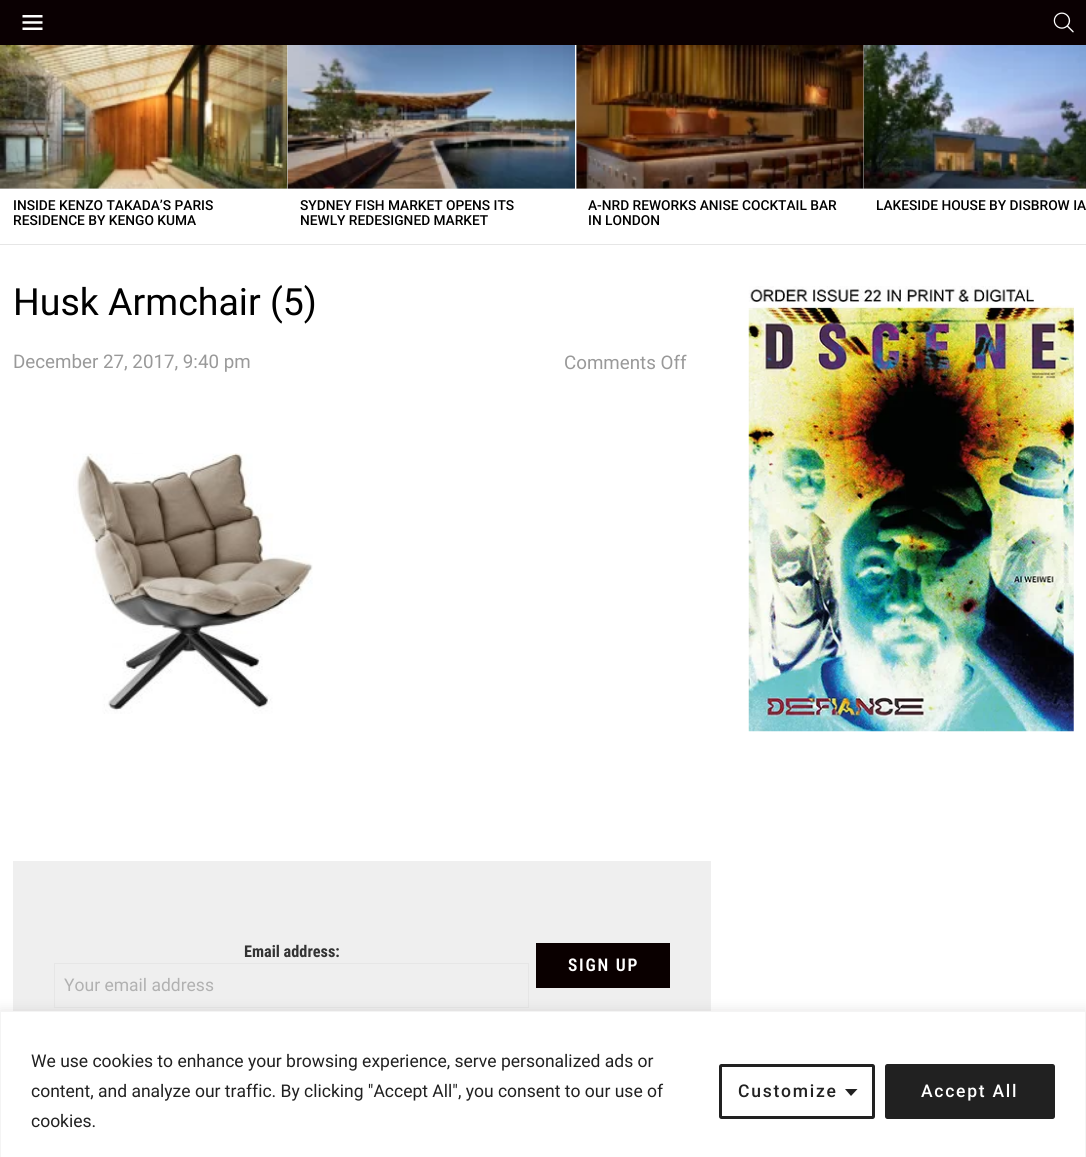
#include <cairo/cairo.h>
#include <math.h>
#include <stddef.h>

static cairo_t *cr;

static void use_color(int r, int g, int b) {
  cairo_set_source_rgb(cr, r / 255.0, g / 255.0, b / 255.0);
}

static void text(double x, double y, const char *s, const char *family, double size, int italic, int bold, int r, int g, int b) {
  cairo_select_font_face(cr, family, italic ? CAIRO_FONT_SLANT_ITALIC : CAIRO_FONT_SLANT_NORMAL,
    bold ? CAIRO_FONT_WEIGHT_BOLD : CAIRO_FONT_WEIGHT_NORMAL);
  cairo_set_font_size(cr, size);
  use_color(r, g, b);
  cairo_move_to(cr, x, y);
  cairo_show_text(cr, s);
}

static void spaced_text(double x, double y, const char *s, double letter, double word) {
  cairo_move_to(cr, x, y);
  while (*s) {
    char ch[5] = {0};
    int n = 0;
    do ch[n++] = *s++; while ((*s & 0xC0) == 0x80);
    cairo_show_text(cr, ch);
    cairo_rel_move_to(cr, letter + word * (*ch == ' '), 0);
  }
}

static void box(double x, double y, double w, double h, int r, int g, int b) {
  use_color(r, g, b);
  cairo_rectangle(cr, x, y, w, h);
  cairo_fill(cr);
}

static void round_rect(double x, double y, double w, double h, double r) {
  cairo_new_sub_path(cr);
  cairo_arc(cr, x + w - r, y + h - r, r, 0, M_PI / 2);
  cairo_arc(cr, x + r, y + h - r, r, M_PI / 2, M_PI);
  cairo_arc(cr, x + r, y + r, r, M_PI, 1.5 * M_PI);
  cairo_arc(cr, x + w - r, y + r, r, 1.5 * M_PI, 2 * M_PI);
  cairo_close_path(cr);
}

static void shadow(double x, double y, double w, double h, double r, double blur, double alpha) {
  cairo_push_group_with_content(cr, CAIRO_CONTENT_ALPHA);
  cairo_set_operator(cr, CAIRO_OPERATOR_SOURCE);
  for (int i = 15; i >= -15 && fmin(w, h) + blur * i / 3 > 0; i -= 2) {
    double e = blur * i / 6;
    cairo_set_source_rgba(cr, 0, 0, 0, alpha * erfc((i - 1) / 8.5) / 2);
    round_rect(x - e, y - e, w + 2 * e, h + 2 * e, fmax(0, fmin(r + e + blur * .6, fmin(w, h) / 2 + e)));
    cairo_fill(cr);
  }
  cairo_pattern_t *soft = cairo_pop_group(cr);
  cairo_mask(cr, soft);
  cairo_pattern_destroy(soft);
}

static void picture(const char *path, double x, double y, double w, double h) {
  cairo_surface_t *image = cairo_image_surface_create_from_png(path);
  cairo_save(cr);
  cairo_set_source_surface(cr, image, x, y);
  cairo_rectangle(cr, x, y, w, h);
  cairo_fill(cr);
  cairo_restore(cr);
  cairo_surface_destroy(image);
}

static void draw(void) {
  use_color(255, 255, 255);
  cairo_paint(cr);
  box(0, 0, 1086, 45, 10, 0, 2);
  picture("img_01.png", 22, 15, 21, 15);
  picture("img_02.png", 1053, 12, 21, 21);
  box(0, 244, 1086, 1, 230, 230, 230);
  box(0, 45, 288, 144, 230, 230, 230);
  picture("img_03.png", 0, 45, 288, 144);
  box(288, 188, 287, 1, 230, 230, 230);
  picture("img_04.png", 287, 45, 288, 144);
  box(576, 45, 288, 144, 230, 230, 230);
  picture("img_05.png", 576, 45, 288, 144);
  box(864, 188, 222, 1, 230, 230, 230);
  picture("img_06.png", 863, 45, 223, 144);
  picture("img_07.png", 73, 453, 240, 261);
  box(13, 861, 698, 150, 239, 239, 239);
  cairo_rectangle(cr, 54.5, 963.5, 474, 44);
  use_color(230, 230, 230);
  cairo_set_line_width(cr, 1);
  cairo_stroke(cr);
  box(536, 943, 134, 45, 10, 0, 0);
  picture("img_08.png", 748, 286, 326, 446);
  use_color(172, 171, 171);
  shadow(0, 1010, 1086, 146, 0, 6, 0.3);
  use_color(255, 255, 255);
  cairo_rectangle(cr, 0.5, 1011.5, 1085, 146);
  cairo_fill_preserve(cr);
  use_color(244, 244, 244);
  cairo_stroke(cr);
  round_rect(720.5, 1065.5, 153, 52, 1);
  use_color(33, 33, 33);
  cairo_set_line_width(cr, 3);
  cairo_stroke(cr);
  cairo_new_path(cr);
  cairo_move_to(cr, 845, 1089);
  cairo_line_to(cr, 857.5, 1089);
  cairo_line_to(cr, 851, 1096);
  cairo_close_path(cr);
  cairo_fill(cr);
  round_rect(886.5, 1065.5, 167, 52, 1);
  cairo_fill_preserve(cr);
  cairo_stroke(cr);
  text(13, 210, "INSIDE KENZO TAKADA’S PARIS", "Roboto Medium", 13.75, 0, 0, 0, 0, 0);
  text(13, 225, "RESIDENCE BY KENGO KUMA", "Roboto Medium", 13.75, 0, 0, 0, 0, 0);
  text(300, 210, "SYDNEY FISH MARKET OPENS ITS", "Roboto Medium", 13.75, 0, 0, 0, 0, 0);
  text(300, 225, "NEWLY REDESIGNED MARKET", "Roboto Medium", 13.75, 0, 0, 0, 0, 0);
  text(588, 210, "A-NRD REWORKS ANISE COCKTAIL BAR", "Roboto Medium", 13.75, 0, 0, 0, 0, 0);
  text(588, 225, "IN LONDON", "Roboto Medium", 13.75, 0, 0, 0, 0, 0);
  text(876, 210, "LAKESIDE HOUSE BY DISBROW IA", "Roboto Medium", 13.75, 0, 0, 0, 0, 0);
  text(13, 315, "Husk Armchair (5)", "Roboto", 37.5, 0, 0, 0, 0, 0);
  text(13, 368, "December 27, 2017, 9:40 pm", "Roboto", 18.75, 0, 0, 153, 153, 153);
  text(564, 369, "Comments Off", "Roboto", 18.75, 0, 0, 153, 153, 153);
  text(244, 957, "Email address:", "Roboto Condensed", 16.25, 0, 1, 51, 51, 51);
  text(64, 991, "Your email address", "Roboto", 17.5, 0, 0, 177, 177, 177);
  cairo_select_font_face(cr, "Roboto Condensed SemiBold", CAIRO_FONT_SLANT_NORMAL, CAIRO_FONT_WEIGHT_NORMAL);
  use_color(255, 255, 255);
  spaced_text(568, 971, "SIGN UP", 1.75, 0);
  text(31, 1067, "We use cookies to enhance your browsing experience, serve personalized ads or", "Roboto", 17.5, 0, 0, 33, 33, 33);
  text(31, 1097, "content, and analyze our traffic. By clicking \"Accept All\", you consent to our use of", "Roboto", 17.5, 0, 0, 33, 33, 33);
  text(31, 1127, "cookies.", "Roboto", 17.5, 0, 0, 33, 33, 33);
  cairo_select_font_face(cr, "Roboto Medium", CAIRO_FONT_SLANT_NORMAL, CAIRO_FONT_WEIGHT_NORMAL);
  spaced_text(738, 1097, "Customize", 1.75, 0);
  use_color(255, 255, 255);
  spaced_text(921, 1097, "Accept All", 1.75, 0);
}

int main(void) {
  cairo_surface_t *surface = cairo_image_surface_create(CAIRO_FORMAT_RGB24, 1086, 1157);
  cr = cairo_create(surface);
  cairo_font_options_t *options = cairo_font_options_create();
  cairo_font_options_set_hint_metrics(options, CAIRO_HINT_METRICS_OFF);
  cairo_font_options_set_hint_style(options, CAIRO_HINT_STYLE_NONE);
  cairo_set_font_options(cr, options);
  cairo_set_miter_limit(cr, 4);
  draw();
  cairo_surface_write_to_png(surface, "out.png");
  cairo_font_options_destroy(options);
  cairo_destroy(cr);
  cairo_surface_destroy(surface);
  return 0;
}
